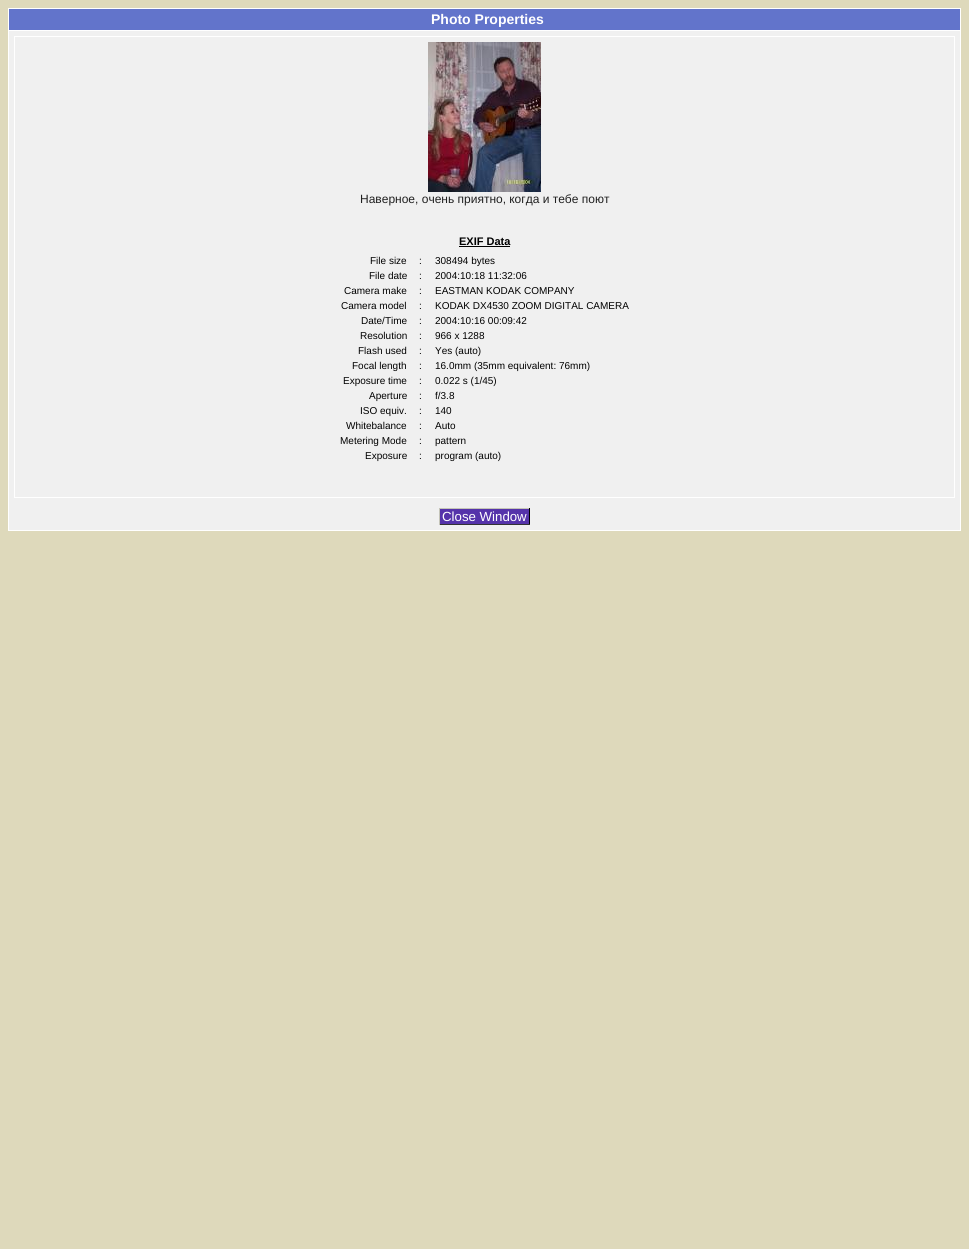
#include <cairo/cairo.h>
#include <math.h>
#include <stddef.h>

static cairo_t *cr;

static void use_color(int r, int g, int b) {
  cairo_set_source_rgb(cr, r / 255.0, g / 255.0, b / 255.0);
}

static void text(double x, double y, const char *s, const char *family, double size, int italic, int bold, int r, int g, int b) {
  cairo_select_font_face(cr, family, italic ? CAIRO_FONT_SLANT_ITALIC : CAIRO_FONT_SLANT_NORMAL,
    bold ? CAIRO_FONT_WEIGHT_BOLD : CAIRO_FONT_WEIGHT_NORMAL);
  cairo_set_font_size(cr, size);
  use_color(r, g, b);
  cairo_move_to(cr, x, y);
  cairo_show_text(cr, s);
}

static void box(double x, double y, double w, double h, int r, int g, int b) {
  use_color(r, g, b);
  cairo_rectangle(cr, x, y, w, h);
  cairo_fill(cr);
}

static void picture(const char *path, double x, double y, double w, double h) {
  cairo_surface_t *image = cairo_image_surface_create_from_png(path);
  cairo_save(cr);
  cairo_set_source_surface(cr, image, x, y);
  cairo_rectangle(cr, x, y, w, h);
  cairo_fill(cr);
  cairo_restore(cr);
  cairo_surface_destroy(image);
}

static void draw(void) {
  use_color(222, 217, 187);
  cairo_paint(cr);
  box(9, 9, 951, 21, 98, 116, 203);
  box(8, 8, 953, 1, 255, 255, 255);
  box(960, 8, 1, 22, 255, 255, 255);
  box(8, 8, 1, 22, 255, 255, 255);
  use_color(240, 240, 240);
  cairo_rectangle(cr, 8.5, 30.5, 952, 500);
  cairo_fill_preserve(cr);
  use_color(255, 255, 255);
  cairo_set_line_width(cr, 1);
  cairo_stroke(cr);
  cairo_rectangle(cr, 14.5, 36.5, 940, 461);
  cairo_stroke(cr);
  picture("img_01.png", 428, 42, 113, 150);
  box(459, 246, 51, 1, 0, 0, 0);
  box(440, 509, 89, 15, 85, 51, 170);
  box(439, 508, 91, 1, 196, 196, 184);
  box(529, 508, 1, 17, 0, 0, 0);
  box(439, 524, 91, 1, 51, 51, 51);
  box(439, 508, 1, 17, 196, 196, 184);
  text(431, 24, "Photo Properties", "Liberation Sans", 14, 0, 1, 255, 255, 255);
  text(360, 203, "Наверное, очень приятно, когда и тебе поют", "Liberation Sans", 12, 0, 0, 32, 32, 32);
  text(459, 245, "EXIF Data", "Liberation Sans", 11, 0, 1, 0, 0, 0);
  text(370, 264, "File size", "Liberation Sans", 10, 0, 0, 0, 0, 0);
  text(419, 264, ":", "Liberation Sans", 10, 0, 0, 0, 0, 0);
  text(435, 264, "308494 bytes", "Liberation Sans", 10, 0, 0, 0, 0, 0);
  text(369, 279, "File date", "Liberation Sans", 10, 0, 0, 0, 0, 0);
  text(419, 279, ":", "Liberation Sans", 10, 0, 0, 0, 0, 0);
  text(435, 279, "2004:10:18 11:32:06", "Liberation Sans", 10, 0, 0, 0, 0, 0);
  text(344, 294, "Camera make", "Liberation Sans", 10, 0, 0, 0, 0, 0);
  text(419, 294, ":", "Liberation Sans", 10, 0, 0, 0, 0, 0);
  text(435, 294, "EASTMAN KODAK COMPANY", "Liberation Sans", 10, 0, 0, 0, 0, 0);
  text(341, 309, "Camera model", "Liberation Sans", 10, 0, 0, 0, 0, 0);
  text(419, 309, ":", "Liberation Sans", 10, 0, 0, 0, 0, 0);
  text(435, 309, "KODAK DX4530 ZOOM DIGITAL CAMERA", "Liberation Sans", 10, 0, 0, 0, 0, 0);
  text(361, 324, "Date/Time", "Liberation Sans", 10, 0, 0, 0, 0, 0);
  text(419, 324, ":", "Liberation Sans", 10, 0, 0, 0, 0, 0);
  text(435, 324, "2004:10:16 00:09:42", "Liberation Sans", 10, 0, 0, 0, 0, 0);
  text(360, 339, "Resolution", "Liberation Sans", 10, 0, 0, 0, 0, 0);
  text(419, 339, ":", "Liberation Sans", 10, 0, 0, 0, 0, 0);
  text(435, 339, "966 x 1288", "Liberation Sans", 10, 0, 0, 0, 0, 0);
  text(358, 354, "Flash used", "Liberation Sans", 10, 0, 0, 0, 0, 0);
  text(419, 354, ":", "Liberation Sans", 10, 0, 0, 0, 0, 0);
  text(435, 354, "Yes (auto)", "Liberation Sans", 10, 0, 0, 0, 0, 0);
  text(352, 369, "Focal length", "Liberation Sans", 10, 0, 0, 0, 0, 0);
  text(419, 369, ":", "Liberation Sans", 10, 0, 0, 0, 0, 0);
  text(435, 369, "16.0mm (35mm equivalent: 76mm)", "Liberation Sans", 10, 0, 0, 0, 0, 0);
  text(343, 384, "Exposure time", "Liberation Sans", 10, 0, 0, 0, 0, 0);
  text(419, 384, ":", "Liberation Sans", 10, 0, 0, 0, 0, 0);
  text(435, 384, "0.022 s (1/45)", "Liberation Sans", 10, 0, 0, 0, 0, 0);
  text(369, 399, "Aperture", "Liberation Sans", 10, 0, 0, 0, 0, 0);
  text(419, 399, ":", "Liberation Sans", 10, 0, 0, 0, 0, 0);
  text(435, 399, "f/3.8", "Liberation Sans", 10, 0, 0, 0, 0, 0);
  text(360, 414, "ISO equiv.", "Liberation Sans", 10, 0, 0, 0, 0, 0);
  text(419, 414, ":", "Liberation Sans", 10, 0, 0, 0, 0, 0);
  text(435, 414, "140", "Liberation Sans", 10, 0, 0, 0, 0, 0);
  text(346, 429, "Whitebalance", "Liberation Sans", 10, 0, 0, 0, 0, 0);
  text(419, 429, ":", "Liberation Sans", 10, 0, 0, 0, 0, 0);
  text(435, 429, "Auto", "Liberation Sans", 10, 0, 0, 0, 0, 0);
  text(340, 444, "Metering Mode", "Liberation Sans", 10, 0, 0, 0, 0, 0);
  text(419, 444, ":", "Liberation Sans", 10, 0, 0, 0, 0, 0);
  text(435, 444, "pattern", "Liberation Sans", 10, 0, 0, 0, 0, 0);
  text(365, 459, "Exposure", "Liberation Sans", 10, 0, 0, 0, 0, 0);
  text(419, 459, ":", "Liberation Sans", 10, 0, 0, 0, 0, 0);
  text(435, 459, "program (auto)", "Liberation Sans", 10, 0, 0, 0, 0, 0);
  text(442, 521, "Close Window", "Liberation Sans", 13.25, 0, 0, 255, 255, 255);
}

int main(void) {
  cairo_surface_t *surface = cairo_image_surface_create(CAIRO_FORMAT_RGB24, 969, 1249);
  cr = cairo_create(surface);
  cairo_font_options_t *options = cairo_font_options_create();
  cairo_font_options_set_hint_metrics(options, CAIRO_HINT_METRICS_OFF);
  cairo_font_options_set_hint_style(options, CAIRO_HINT_STYLE_NONE);
  cairo_set_font_options(cr, options);
  cairo_set_miter_limit(cr, 4);
  draw();
  cairo_surface_write_to_png(surface, "out.png");
  cairo_font_options_destroy(options);
  cairo_destroy(cr);
  cairo_surface_destroy(surface);
  return 0;
}
